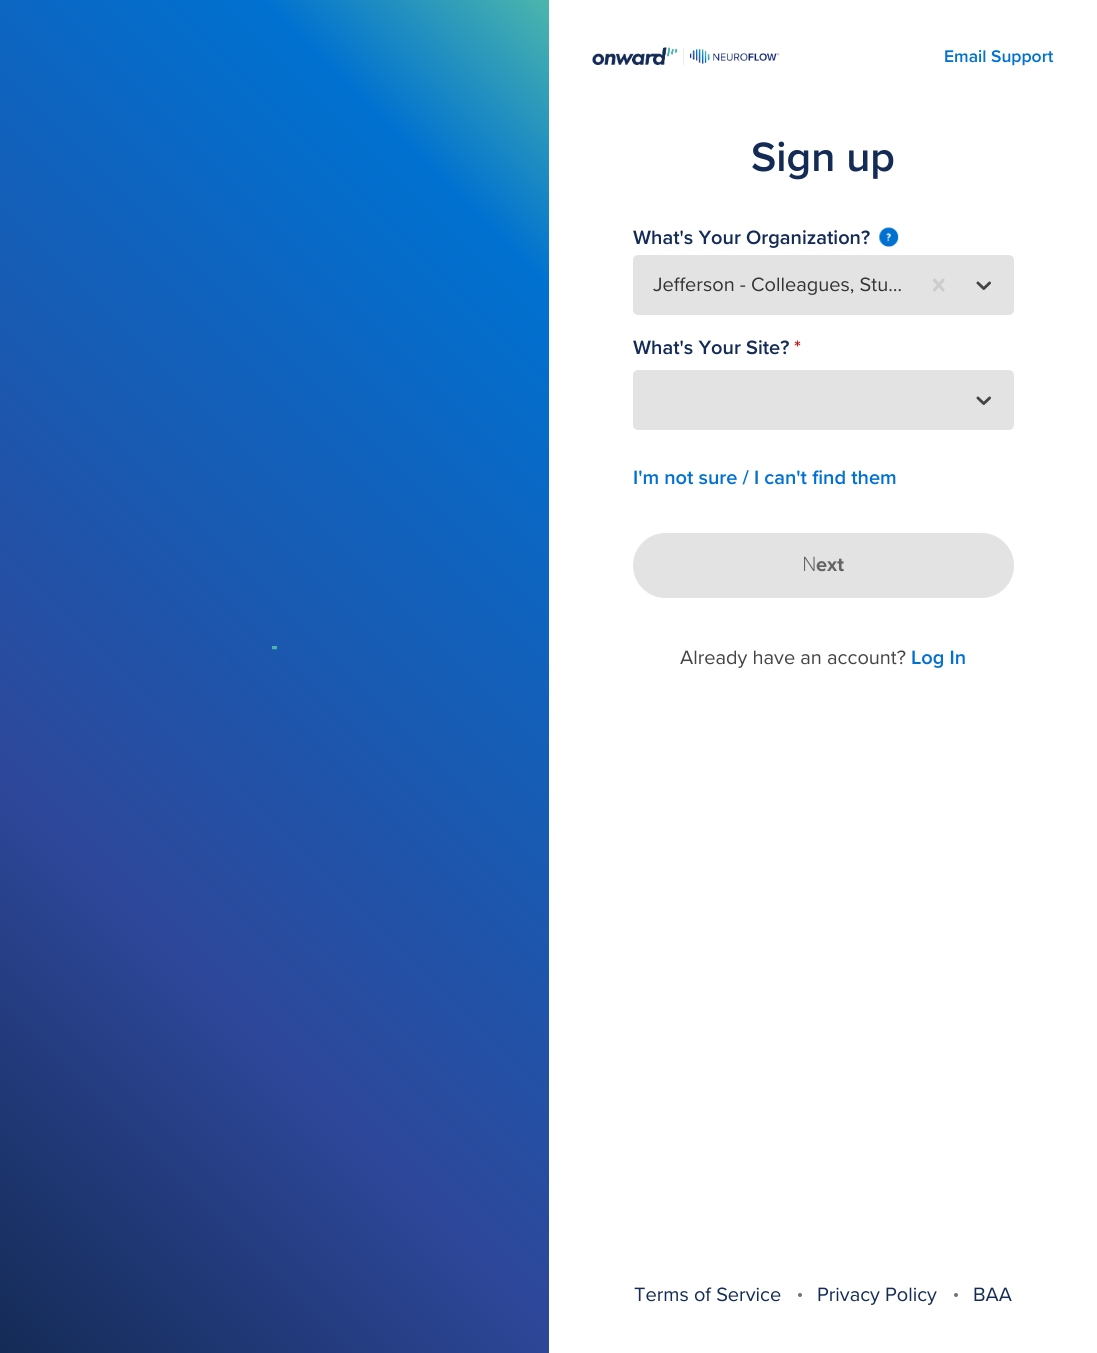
#include <cairo/cairo.h>
#include <math.h>
#include <stddef.h>

static cairo_t *cr;

static void use_color(int r, int g, int b) {
  cairo_set_source_rgb(cr, r / 255.0, g / 255.0, b / 255.0);
}

static void text(double x, double y, const char *s, const char *family, double size, int italic, int bold, int r, int g, int b) {
  cairo_select_font_face(cr, family, italic ? CAIRO_FONT_SLANT_ITALIC : CAIRO_FONT_SLANT_NORMAL,
    bold ? CAIRO_FONT_WEIGHT_BOLD : CAIRO_FONT_WEIGHT_NORMAL);
  cairo_set_font_size(cr, size);
  use_color(r, g, b);
  cairo_move_to(cr, x, y);
  cairo_show_text(cr, s);
}

static void round_rect(double x, double y, double w, double h, double r) {
  cairo_new_sub_path(cr);
  cairo_arc(cr, x + w - r, y + h - r, r, 0, M_PI / 2);
  cairo_arc(cr, x + r, y + h - r, r, M_PI / 2, M_PI);
  cairo_arc(cr, x + r, y + r, r, M_PI, 1.5 * M_PI);
  cairo_arc(cr, x + w - r, y + r, r, 1.5 * M_PI, 2 * M_PI);
  cairo_close_path(cr);
}

static void picture(const char *path, double x, double y, double w, double h) {
  cairo_surface_t *image = cairo_image_surface_create_from_png(path);
  cairo_save(cr);
  cairo_set_source_surface(cr, image, x, y);
  cairo_rectangle(cr, x, y, w, h);
  cairo_fill(cr);
  cairo_restore(cr);
  cairo_surface_destroy(image);
}

static void draw(void) {
  cairo_pattern_t *gradient;
  use_color(255, 255, 255);
  cairo_paint(cr);
  gradient = cairo_pattern_create_linear(750, 201, -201, 1153);
  cairo_pattern_add_color_stop_rgba(gradient, 0, 0.298, 0.714, 0.675, 1);
  cairo_pattern_add_color_stop_rgba(gradient, 0.15, 0, 0.443, 0.816, 1);
  cairo_pattern_add_color_stop_rgba(gradient, 0.7, 0.18, 0.278, 0.6, 1);
  cairo_pattern_add_color_stop_rgba(gradient, 1, 0.078, 0.169, 0.337, 1);
  cairo_set_source(cr, gradient);
  cairo_pattern_destroy(gradient);
  cairo_rectangle(cr, 0, 0, 549, 1353);
  cairo_fill(cr);
  cairo_save(cr);
  cairo_rectangle(cr, 244, 646, 31, 63);
  cairo_clip(cr);
  cairo_new_path(cr);
  cairo_move_to(cr, 272, 647.5);
  cairo_curve_to(cr, 300.5, 645, 315, 682, 292.5, 700);
  cairo_curve_to(cr, 288, 703.5, 282.5, 705.5, 277, 706);
  use_color(76, 182, 172);
  cairo_set_line_width(cr, 3.7);
  cairo_stroke(cr);
  cairo_restore(cr);
  cairo_save(cr);
  cairo_rectangle(cr, 275, 646, 31, 63);
  cairo_clip(cr);
  cairo_new_path(cr);
  cairo_move_to(cr, 272, 706);
  cairo_curve_to(cr, 243, 703.5, 235, 665, 260.5, 651);
  cairo_curve_to(cr, 265.5, 648.5, 271, 647, 277, 647.5);
  use_color(76, 182, 172);
  cairo_set_line_width(cr, 3.7);
  cairo_stroke(cr);
  cairo_restore(cr);
  picture("img_01.png", 592, 47, 188, 18);
  picture("img_02.png", 879, 227, 20, 20);
  use_color(227, 227, 227);
  round_rect(634.5, 256.5, 378, 57, 3.5);
  cairo_fill_preserve(cr);
  cairo_set_line_width(cr, 3);
  cairo_stroke(cr);
  picture("img_03.png", 933, 278, 12, 14);
  picture("img_04.png", 976, 281, 15, 9);
  round_rect(634.5, 371.5, 378, 57, 3.5);
  cairo_fill_preserve(cr);
  cairo_stroke(cr);
  picture("img_04.png", 976, 396, 15, 9);
  round_rect(633, 533, 381, 65, 32.5);
  cairo_fill(cr);
  use_color(115, 115, 115);
  cairo_arc(cr, 800, 1295, 2, 0, 2 * M_PI);
  cairo_fill(cr);
  cairo_arc(cr, 956, 1295, 2, 0, 2 * M_PI);
  cairo_fill(cr);
  text(944, 62, "Email Support", "Proxima Nova SemiBold", 17.5, 0, 0, 0, 113, 208);
  text(751, 171, "Sign up", "Proxima Nova SemiBold", 42.5, 0, 0, 20, 43, 86);
  text(633, 244, "What's Your Organization?", "Proxima Nova SemiBold", 20, 0, 0, 20, 43, 86);
  text(653, 291, "Jefferson - Colleagues, Stu…", "Proxima Nova", 20, 0, 0, 51, 51, 51);
  text(633, 354, "What's Your Site?", "Proxima Nova SemiBold", 20, 0, 0, 20, 43, 86);
  text(794, 354, "*", "Proxima Nova SemiBold", 20, 0, 0, 201, 21, 24);
  text(633, 484, "I'm not sure / I can't find them", "Proxima Nova SemiBold", 20, 0, 0, 0, 113, 208);
  text(802, 571, "N", "Noto Sans Light", 20, 0, 0, 100, 100, 100);
  text(816, 571, "ext", "Proxima Nova", 20, 0, 1, 100, 100, 100);
  text(680, 664, "Already have an account?", "Proxima Nova", 20, 0, 0, 68, 68, 68);
  text(911, 664, "Log In", "Proxima Nova SemiBold", 20, 0, 0, 0, 113, 208);
  text(634, 1301, "Terms of Service", "Proxima Nova", 20, 0, 0, 20, 43, 86);
  text(817, 1301, "Privacy Policy", "Proxima Nova", 20, 0, 0, 20, 43, 86);
  text(973, 1301, "BAA", "Proxima Nova", 20, 0, 0, 20, 43, 86);
}

int main(void) {
  cairo_surface_t *surface = cairo_image_surface_create(CAIRO_FORMAT_RGB24, 1097, 1353);
  cr = cairo_create(surface);
  cairo_font_options_t *options = cairo_font_options_create();
  cairo_font_options_set_hint_metrics(options, CAIRO_HINT_METRICS_OFF);
  cairo_font_options_set_hint_style(options, CAIRO_HINT_STYLE_NONE);
  cairo_set_font_options(cr, options);
  cairo_set_miter_limit(cr, 4);
  draw();
  cairo_surface_write_to_png(surface, "out.png");
  cairo_font_options_destroy(options);
  cairo_destroy(cr);
  cairo_surface_destroy(surface);
  return 0;
}
